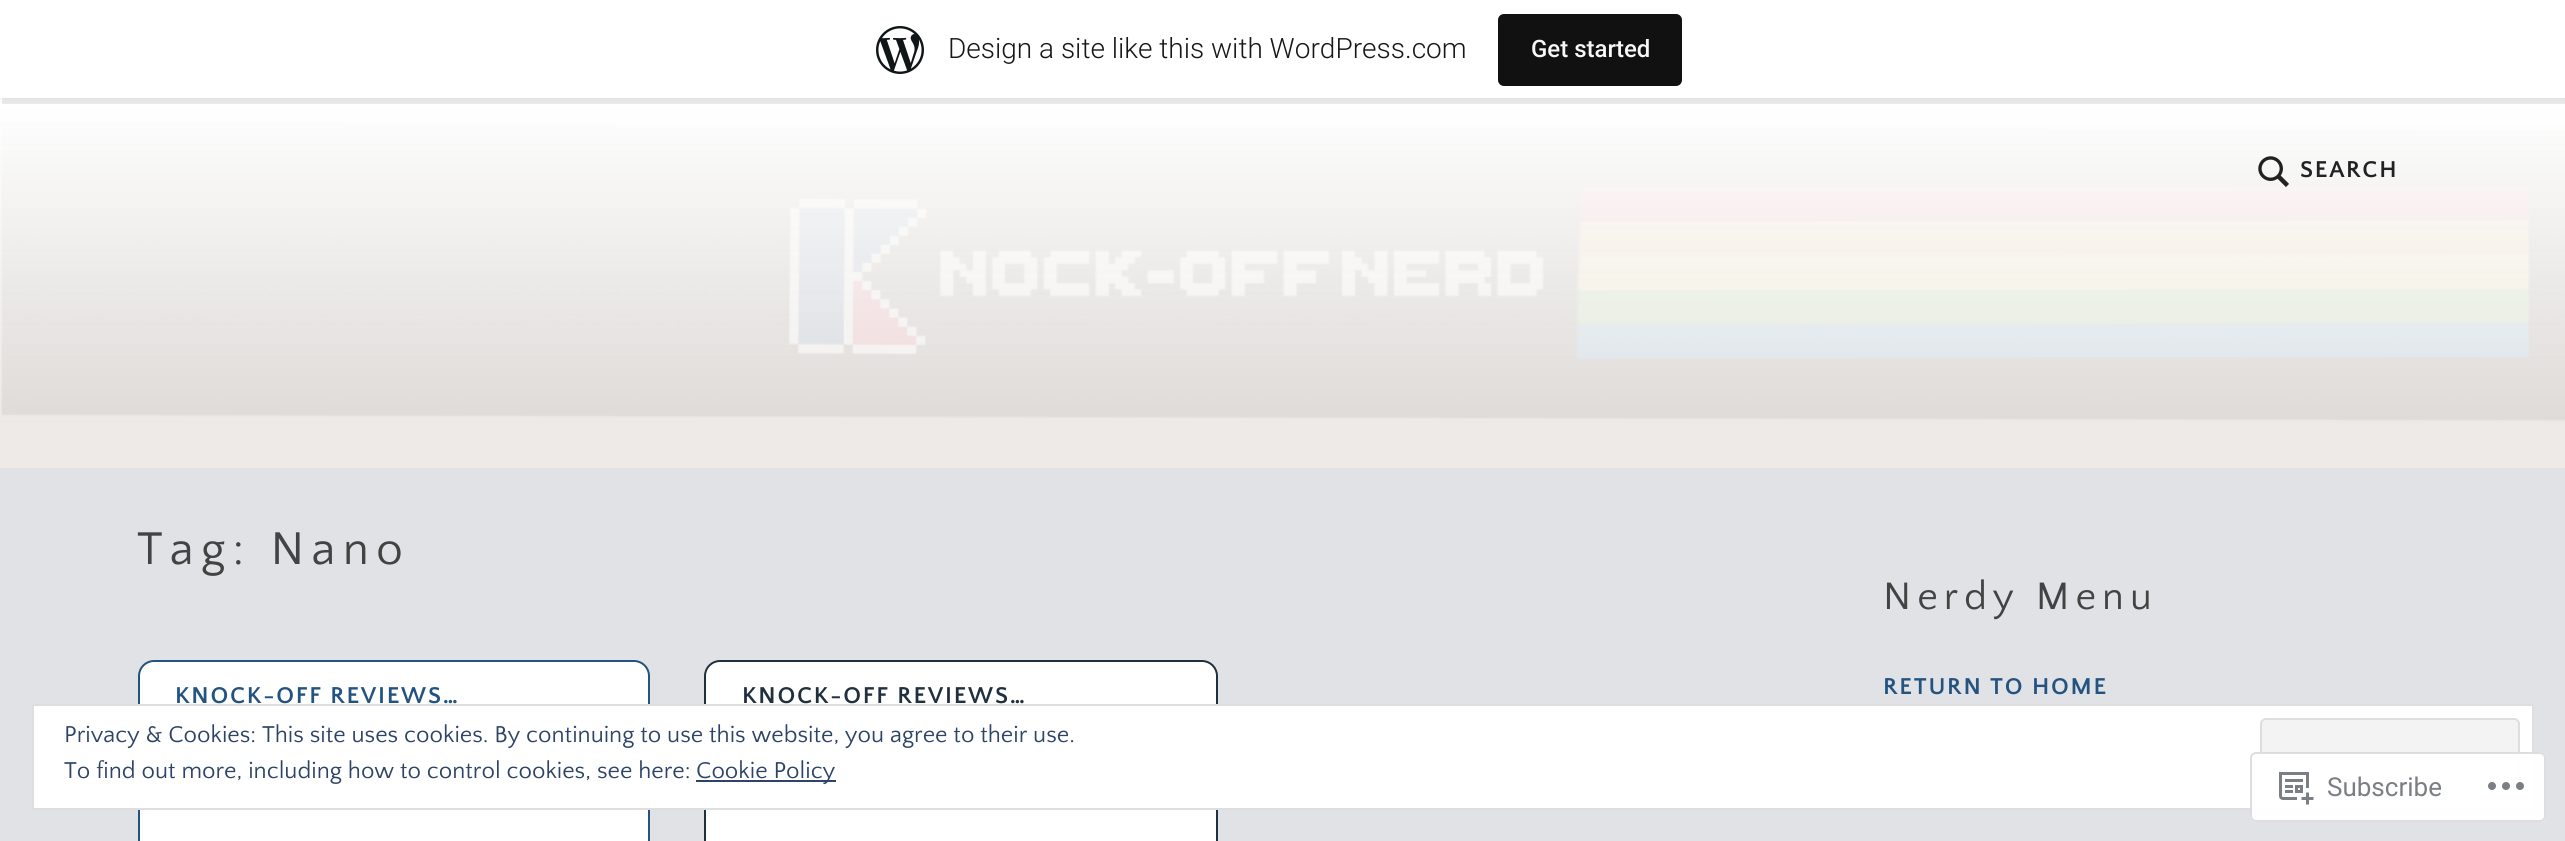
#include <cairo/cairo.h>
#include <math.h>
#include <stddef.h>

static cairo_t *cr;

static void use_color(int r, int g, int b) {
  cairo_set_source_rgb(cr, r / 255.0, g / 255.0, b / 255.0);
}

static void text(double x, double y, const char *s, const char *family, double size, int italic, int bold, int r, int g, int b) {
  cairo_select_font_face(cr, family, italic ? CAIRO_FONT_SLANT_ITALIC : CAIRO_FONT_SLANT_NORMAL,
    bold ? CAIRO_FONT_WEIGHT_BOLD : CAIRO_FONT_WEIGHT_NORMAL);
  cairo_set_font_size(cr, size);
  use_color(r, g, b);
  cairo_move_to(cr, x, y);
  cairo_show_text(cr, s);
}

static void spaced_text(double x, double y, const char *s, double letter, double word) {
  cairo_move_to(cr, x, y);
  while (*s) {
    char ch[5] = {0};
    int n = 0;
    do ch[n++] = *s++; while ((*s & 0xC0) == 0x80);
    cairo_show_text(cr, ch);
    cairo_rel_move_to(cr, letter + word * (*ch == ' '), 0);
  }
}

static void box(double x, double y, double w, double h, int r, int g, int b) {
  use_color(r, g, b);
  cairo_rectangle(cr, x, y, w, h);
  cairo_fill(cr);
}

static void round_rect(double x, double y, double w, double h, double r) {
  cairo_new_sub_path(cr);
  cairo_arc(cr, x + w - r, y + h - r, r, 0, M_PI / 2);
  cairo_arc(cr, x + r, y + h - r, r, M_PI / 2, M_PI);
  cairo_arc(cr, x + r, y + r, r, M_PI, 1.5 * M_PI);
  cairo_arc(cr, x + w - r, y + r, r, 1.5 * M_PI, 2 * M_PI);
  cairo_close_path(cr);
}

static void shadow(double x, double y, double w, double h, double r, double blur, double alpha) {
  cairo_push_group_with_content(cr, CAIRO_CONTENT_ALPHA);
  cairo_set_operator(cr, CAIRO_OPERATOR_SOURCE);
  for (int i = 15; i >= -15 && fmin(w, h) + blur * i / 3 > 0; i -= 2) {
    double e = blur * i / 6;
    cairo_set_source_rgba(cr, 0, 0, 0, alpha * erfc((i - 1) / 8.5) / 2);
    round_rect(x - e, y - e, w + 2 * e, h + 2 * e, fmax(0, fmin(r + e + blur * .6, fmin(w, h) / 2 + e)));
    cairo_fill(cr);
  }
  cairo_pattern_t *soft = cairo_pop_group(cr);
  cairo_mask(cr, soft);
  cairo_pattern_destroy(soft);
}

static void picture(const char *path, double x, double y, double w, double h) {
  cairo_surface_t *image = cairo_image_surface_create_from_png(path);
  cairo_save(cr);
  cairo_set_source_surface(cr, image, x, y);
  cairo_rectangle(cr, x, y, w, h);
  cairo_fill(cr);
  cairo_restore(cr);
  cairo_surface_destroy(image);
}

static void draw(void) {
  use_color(224, 226, 229);
  cairo_paint(cr);
  picture("img_02.png", 0, 98, 2565, 370);
  use_color(0, 0, 0);
  shadow(0, 2, 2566, 98, 0, 2, 0.05);
  cairo_set_source_rgba(cr, 0, 0, 0, 0.08);
  cairo_new_path(cr);
  cairo_move_to(cr, 2, 98);
  cairo_line_to(cr, 2, 104);
  cairo_line_to(cr, 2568, 104);
  cairo_line_to(cr, 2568, 6);
  cairo_line_to(cr, 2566, 6);
  cairo_line_to(cr, 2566, 98);
  cairo_close_path(cr);
  cairo_fill(cr);
  box(0, 0, 2565, 98, 255, 255, 255);
  picture("img_01.png", 876, 26, 48, 48);
  use_color(17, 17, 17);
  round_rect(1498, 14, 184, 72, 6);
  cairo_fill(cr);
  picture("img_03.png", 2258, 156, 31, 31);
  use_color(255, 255, 255);
  round_rect(139, 661, 510, 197, 15);
  cairo_fill_preserve(cr);
  use_color(35, 83, 128);
  cairo_stroke(cr);
  use_color(255, 255, 255);
  round_rect(705, 661, 512, 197, 15);
  cairo_fill_preserve(cr);
  use_color(33, 48, 62);
  cairo_stroke(cr);
  use_color(255, 255, 255);
  cairo_rectangle(cr, 33, 705, 2500, 104);
  cairo_fill_preserve(cr);
  use_color(222, 222, 222);
  cairo_stroke(cr);
  use_color(243, 243, 243);
  round_rect(2261, 719, 258, 76, 5);
  cairo_fill_preserve(cr);
  use_color(222, 222, 222);
  cairo_stroke(cr);
  box(696, 780, 140, 2, 46, 68, 103);
  cairo_set_source_rgba(cr, 1, 1, 1, 0.98);
  round_rect(2250, 752, 296, 70, 6);
  cairo_fill(cr);
  round_rect(2251, 753, 294, 68, 5);
  cairo_set_source_rgba(cr, 0.863, 0.863, 0.871, 0.98);
  cairo_stroke(cr);
  picture("img_04.png", 2279, 772, 35, 33);
  picture("img_05.png", 2488, 782, 36, 8);
  text(948, 58, "Design a site like this with WordPress.com", "Roboto Light", 28, 0, 0, 23, 23, 23);
  text(1531, 57, "Get started", "Roboto Medium", 24, 0, 0, 246, 247, 247);
  cairo_select_font_face(cr, "Quattrocento Sans", CAIRO_FONT_SLANT_NORMAL, CAIRO_FONT_WEIGHT_BOLD);
  use_color(34, 34, 34);
  spaced_text(2300, 177, "SEARCH", 1.75, 0);
  cairo_select_font_face(cr, "Quattrocento Sans", CAIRO_FONT_SLANT_NORMAL, CAIRO_FONT_WEIGHT_NORMAL);
  cairo_set_font_size(cr, 48);
  use_color(67, 67, 67);
  spaced_text(137, 564, "Tag: Nano", 7.25, 0);
  cairo_select_font_face(cr, "Quattrocento Sans", CAIRO_FONT_SLANT_NORMAL, CAIRO_FONT_WEIGHT_BOLD);
  cairo_set_font_size(cr, 24);
  use_color(35, 83, 128);
  spaced_text(175, 703, "KNOCK-OFF REVIEWS…", 1.75, 0);
  use_color(33, 48, 62);
  spaced_text(742, 703, "KNOCK-OFF REVIEWS…", 1.75, 0);
  cairo_select_font_face(cr, "Quattrocento Sans", CAIRO_FONT_SLANT_NORMAL, CAIRO_FONT_WEIGHT_NORMAL);
  cairo_set_font_size(cr, 40);
  use_color(67, 67, 67);
  spaced_text(1883, 609, "Nerdy Menu", 6, 0);
  cairo_select_font_face(cr, "Quattrocento Sans", CAIRO_FONT_SLANT_NORMAL, CAIRO_FONT_WEIGHT_BOLD);
  cairo_set_font_size(cr, 24);
  use_color(35, 83, 128);
  spaced_text(1883, 694, "RETURN TO HOME", 1.75, 0);
  text(64, 742, "Privacy & Cookies: This site uses cookies. By continuing to use this website, you agree to their use.", "Quattrocento Sans", 24, 0, 0, 46, 68, 103);
  text(64, 778, "To find out more, including how to control cookies, see here:", "Quattrocento Sans", 24, 0, 0, 46, 68, 103);
  text(696, 778, "Cookie Policy", "Quattrocento Sans", 24, 0, 0, 46, 68, 103);
  text(2327, 796, "Subscribe", "Roboto", 26, 0, 0, 123, 127, 132);
}

int main(void) {
  cairo_surface_t *surface = cairo_image_surface_create(CAIRO_FORMAT_RGB24, 2565, 841);
  cr = cairo_create(surface);
  cairo_font_options_t *options = cairo_font_options_create();
  cairo_font_options_set_hint_metrics(options, CAIRO_HINT_METRICS_OFF);
  cairo_font_options_set_hint_style(options, CAIRO_HINT_STYLE_NONE);
  cairo_set_font_options(cr, options);
  cairo_set_miter_limit(cr, 4);
  draw();
  cairo_surface_write_to_png(surface, "out.png");
  cairo_font_options_destroy(options);
  cairo_destroy(cr);
  cairo_surface_destroy(surface);
  return 0;
}
